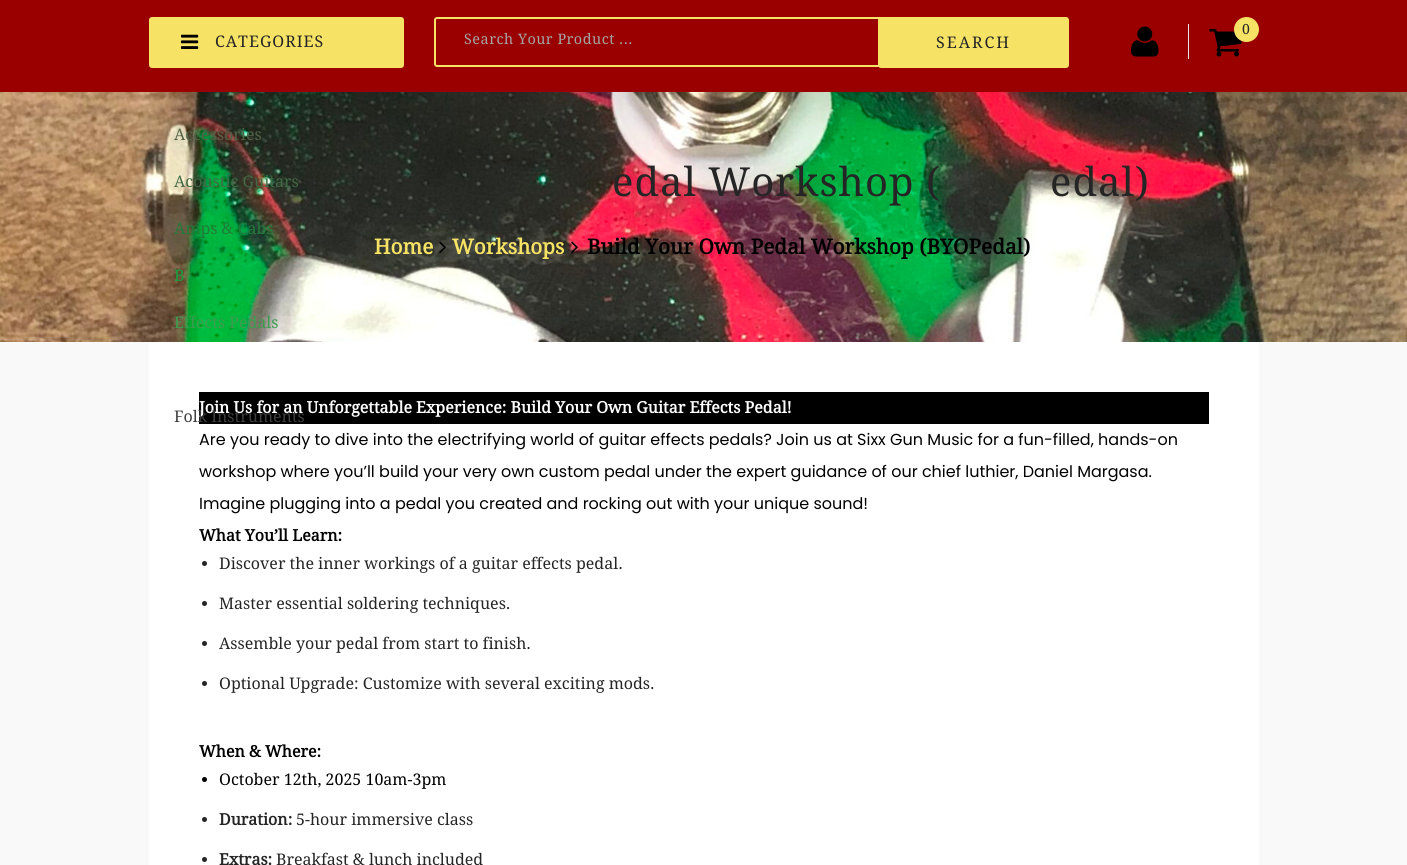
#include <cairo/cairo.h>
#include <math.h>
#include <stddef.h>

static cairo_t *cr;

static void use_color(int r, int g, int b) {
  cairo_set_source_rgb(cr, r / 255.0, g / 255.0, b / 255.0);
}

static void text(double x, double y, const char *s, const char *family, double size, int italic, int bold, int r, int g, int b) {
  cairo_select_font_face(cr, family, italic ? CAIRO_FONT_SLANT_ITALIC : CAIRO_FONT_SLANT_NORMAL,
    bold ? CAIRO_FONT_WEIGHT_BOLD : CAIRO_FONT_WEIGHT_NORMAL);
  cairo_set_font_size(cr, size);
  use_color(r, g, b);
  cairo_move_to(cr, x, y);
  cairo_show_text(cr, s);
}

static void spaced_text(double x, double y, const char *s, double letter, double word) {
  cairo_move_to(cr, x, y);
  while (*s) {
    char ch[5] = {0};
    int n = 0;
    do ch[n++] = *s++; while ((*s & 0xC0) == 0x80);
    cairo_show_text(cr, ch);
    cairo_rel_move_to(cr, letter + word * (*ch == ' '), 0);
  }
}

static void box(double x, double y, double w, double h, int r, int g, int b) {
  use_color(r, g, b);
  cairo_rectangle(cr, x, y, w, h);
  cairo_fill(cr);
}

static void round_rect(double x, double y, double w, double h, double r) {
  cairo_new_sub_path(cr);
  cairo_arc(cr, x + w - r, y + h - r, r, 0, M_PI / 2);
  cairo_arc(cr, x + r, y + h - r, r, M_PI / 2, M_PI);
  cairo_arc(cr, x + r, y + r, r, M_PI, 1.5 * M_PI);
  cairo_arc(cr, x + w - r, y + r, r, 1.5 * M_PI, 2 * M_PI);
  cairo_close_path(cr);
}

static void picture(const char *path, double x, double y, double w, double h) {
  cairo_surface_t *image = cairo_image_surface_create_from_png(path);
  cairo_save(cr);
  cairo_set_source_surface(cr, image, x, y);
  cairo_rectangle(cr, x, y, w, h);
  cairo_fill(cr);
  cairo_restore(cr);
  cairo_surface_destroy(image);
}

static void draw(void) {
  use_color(255, 255, 255);
  cairo_paint(cr);
  box(0, 0, 1407, 92, 155, 0, 0);
  picture("img_01.png", 1131, 26, 28, 31);
  box(1188, 24, 1, 35, 233, 233, 233);
  picture("img_02.png", 1209, 29, 33, 28);
  use_color(246, 226, 100);
  cairo_arc(cr, 1246.5, 29.5, 12.5, 0, 2 * M_PI);
  cairo_fill(cr);
  round_rect(149, 17, 255, 51, 3);
  cairo_fill(cr);
  picture("img_03.png", 181, 34, 18, 15);
  cairo_new_path(cr);
  cairo_move_to(cr, 437, 18);
  cairo_line_to(cr, 909, 18);
  cairo_line_to(cr, 909, 66);
  cairo_line_to(cr, 437, 66);
  cairo_curve_to(cr, 436, 66, 435, 65, 435, 64);
  cairo_line_to(cr, 435, 20);
  cairo_curve_to(cr, 435, 19, 436, 18, 437, 18);
  cairo_close_path(cr);
  cairo_stroke(cr);
  round_rect(878, 17, 191, 51, 3);
  cairo_fill(cr);
  picture("img_04.png", 0, 92, 1407, 250);
  picture("img_05.png", 439, 241, 7, 12);
  picture("img_06.png", 571, 241, 7, 12);
  box(0, 342, 1407, 523, 249, 249, 249);
  box(149, 342, 1110, 523, 255, 255, 255);
  box(199, 392, 1010, 32, 0, 0, 0);
  use_color(37, 37, 37);
  cairo_arc(cr, 204.5, 563.5, 2.5, 0, 2 * M_PI);
  cairo_fill(cr);
  cairo_arc(cr, 204.5, 603.5, 2.5, 0, 2 * M_PI);
  cairo_fill(cr);
  cairo_arc(cr, 204.5, 643.5, 2.5, 0, 2 * M_PI);
  cairo_fill(cr);
  cairo_arc(cr, 204.5, 683.5, 2.5, 0, 2 * M_PI);
  cairo_fill(cr);
  use_color(0, 0, 0);
  cairo_arc(cr, 204.5, 779.5, 2.5, 0, 2 * M_PI);
  cairo_fill(cr);
  use_color(37, 37, 37);
  cairo_arc(cr, 204.5, 819.5, 2.5, 0, 2 * M_PI);
  cairo_fill(cr);
  cairo_arc(cr, 204.5, 859.5, 2.5, 0, 2 * M_PI);
  cairo_fill(cr);
  text(1242, 34, "0", "Droid Serif", 14, 0, 0, 37, 37, 37);
  cairo_set_font_size(cr, 16);
  spaced_text(215, 47, "CATEGORIES", 1, 0);
  text(174, 140, "Accessories", "Droid Serif", 16, 0, 0, 82, 97, 70);
  text(174, 187, "Acoustic Guitars", "Droid Serif", 16, 0, 0, 65, 106, 69);
  text(174, 234, "Amps & Cabs", "Droid Serif", 16, 0, 0, 33, 123, 58);
  text(174, 281, "B", "Droid Serif", 16, 0, 0, 23, 158, 62);
  text(174, 328, "Effects Pedals", "Droid Serif", 16, 0, 0, 60, 157, 81);
  cairo_set_font_size(cr, 14.4);
  use_color(165, 165, 165);
  spaced_text(464, 44, "Search Your Product ...", 0.5, 0);
  cairo_set_font_size(cr, 16);
  use_color(37, 37, 37);
  spaced_text(936, 48, "SEARCH", 2, 0);
  cairo_set_font_size(cr, 40);
  spaced_text(612, 196, "edal Workshop (", 1, 0);
  spaced_text(1050, 196, "edal)", 1, 0);
  text(374, 254, "Home", "Droid Serif", 20.8, 0, 1, 246, 226, 100);
  text(452, 254, "Workshops", "Droid Serif", 20.8, 0, 1, 246, 226, 100);
  text(587, 254, "Build Your Own Pedal Workshop (BYOPedal)", "Droid Serif", 20.8, 0, 1, 0, 0, 0);
  text(199, 413, "Join Us for an Unforgettable Experience: Build Your Own Guitar Effects Pedal!", "Droid Serif", 16, 0, 1, 255, 255, 255);
  text(174, 422, "Folk Instruments", "Droid Serif", 16, 0, 0, 62, 62, 62);
  text(199, 445, "Are you ready to dive into the electrifying world of guitar effects pedals? Join us at Sixx Gun Music for a fun-filled, hands-on", "Poppins", 16, 0, 0, 0, 0, 0);
  text(199, 477, "workshop where you’ll build your very own custom pedal under the expert guidance of our chief luthier, Daniel Margasa.", "Poppins", 16, 0, 0, 0, 0, 0);
  text(199, 509, "Imagine plugging into a pedal you created and rocking out with your unique sound!", "Poppins", 16, 0, 0, 0, 0, 0);
  text(199, 541, "What You’ll Learn:", "Droid Serif", 16, 0, 1, 0, 0, 0);
  text(219, 569, "Discover the inner workings of a guitar effects pedal.", "Droid Serif", 16, 0, 0, 37, 37, 37);
  text(219, 609, "Master essential soldering techniques.", "Droid Serif", 16, 0, 0, 37, 37, 37);
  text(219, 649, "Assemble your pedal from start to finish.", "Droid Serif", 16, 0, 0, 37, 37, 37);
  text(219, 689, "Optional Upgrade: Customize with several exciting mods.", "Droid Serif", 16, 0, 0, 37, 37, 37);
  text(199, 757, "When & Where:", "Droid Serif", 16, 0, 1, 0, 0, 0);
  text(219, 785, "October 12th, 2025 10am-3pm", "Droid Serif", 16, 0, 0, 0, 0, 0);
  text(219, 825, "Duration:", "Droid Serif", 16, 0, 1, 37, 37, 37);
  text(296, 825, "5-hour immersive class", "Droid Serif", 16, 0, 0, 37, 37, 37);
  text(219, 865, "Extras:", "Droid Serif", 16, 0, 1, 37, 37, 37);
  text(276, 865, "Breakfast & lunch included", "Droid Serif", 16, 0, 0, 37, 37, 37);
}

int main(void) {
  cairo_surface_t *surface = cairo_image_surface_create(CAIRO_FORMAT_RGB24, 1407, 865);
  cr = cairo_create(surface);
  cairo_font_options_t *options = cairo_font_options_create();
  cairo_font_options_set_hint_metrics(options, CAIRO_HINT_METRICS_OFF);
  cairo_font_options_set_hint_style(options, CAIRO_HINT_STYLE_NONE);
  cairo_set_font_options(cr, options);
  cairo_set_miter_limit(cr, 4);
  draw();
  cairo_surface_write_to_png(surface, "out.png");
  cairo_font_options_destroy(options);
  cairo_destroy(cr);
  cairo_surface_destroy(surface);
  return 0;
}
